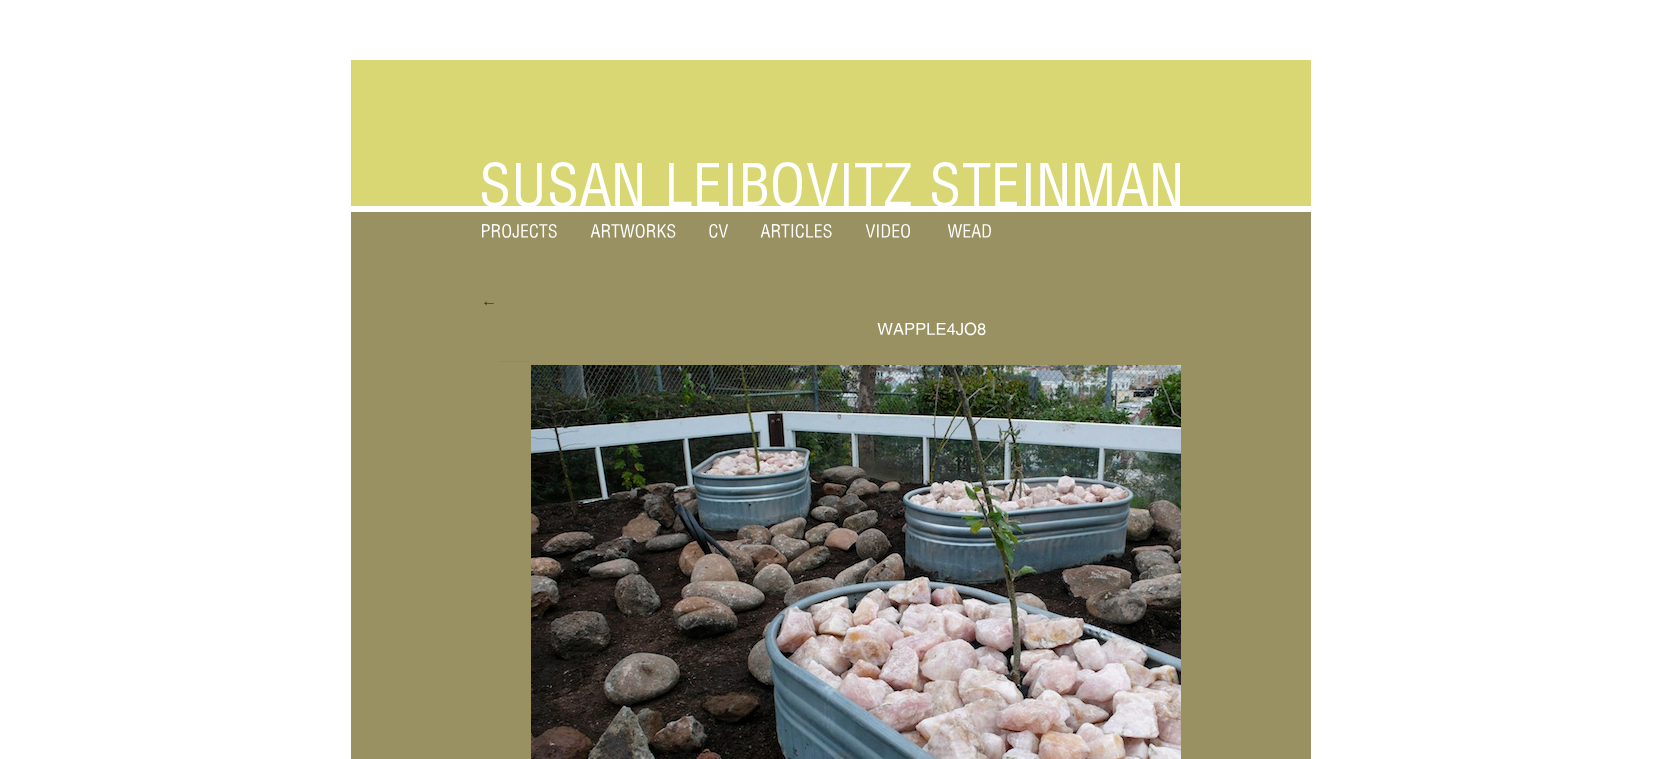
#include <cairo/cairo.h>
#include <math.h>
#include <stddef.h>

static cairo_t *cr;

static void use_color(int r, int g, int b) {
  cairo_set_source_rgb(cr, r / 255.0, g / 255.0, b / 255.0);
}

static void text(double x, double y, const char *s, const char *family, double size, int italic, int bold, int r, int g, int b) {
  cairo_select_font_face(cr, family, italic ? CAIRO_FONT_SLANT_ITALIC : CAIRO_FONT_SLANT_NORMAL,
    bold ? CAIRO_FONT_WEIGHT_BOLD : CAIRO_FONT_WEIGHT_NORMAL);
  cairo_set_font_size(cr, size);
  use_color(r, g, b);
  cairo_move_to(cr, x, y);
  cairo_show_text(cr, s);
}

static void box(double x, double y, double w, double h, int r, int g, int b) {
  use_color(r, g, b);
  cairo_rectangle(cr, x, y, w, h);
  cairo_fill(cr);
}

static void picture(const char *path, double x, double y, double w, double h) {
  cairo_surface_t *image = cairo_image_surface_create_from_png(path);
  cairo_save(cr);
  cairo_set_source_surface(cr, image, x, y);
  cairo_rectangle(cr, x, y, w, h);
  cairo_fill(cr);
  cairo_restore(cr);
  cairo_surface_destroy(image);
}

static void draw(void) {
  use_color(255, 255, 255);
  cairo_paint(cr);
  box(351, 212, 960, 547, 153, 145, 97);
  box(351, 60, 960, 146, 217, 215, 116);
  picture("img_01.png", 482, 162, 698, 44);
  picture("img_02.png", 482, 224, 75, 14);
  picture("img_03.png", 590, 224, 86, 14);
  picture("img_04.png", 709, 224, 19, 14);
  picture("img_05.png", 760, 224, 72, 14);
  picture("img_06.png", 865, 224, 45, 14);
  picture("img_07.png", 947, 224, 44, 14);
  picture("img_08.png", 877, 322, 109, 14);
  box(498, 361, 32, 1, 136, 136, 136);
  cairo_new_path(cr);
  cairo_move_to(cr, 596.5, 361.5);
  cairo_line_to(cr, 694.5, 361.5);
  cairo_set_line_width(cr, 1);
  cairo_set_dash(cr, (double[]){1, 1}, 2, 0);
  cairo_stroke(cr);
  box(763, 361, 54, 1, 136, 136, 136);
  picture("img_09.png", 531, 365, 650, 394);
  text(481, 306, "←", "Liberation Sans", 16, 1, 0, 51, 51, 51);
}

int main(void) {
  cairo_surface_t *surface = cairo_image_surface_create(CAIRO_FORMAT_RGB24, 1662, 759);
  cr = cairo_create(surface);
  cairo_font_options_t *options = cairo_font_options_create();
  cairo_font_options_set_hint_metrics(options, CAIRO_HINT_METRICS_OFF);
  cairo_font_options_set_hint_style(options, CAIRO_HINT_STYLE_NONE);
  cairo_set_font_options(cr, options);
  cairo_set_miter_limit(cr, 4);
  draw();
  cairo_surface_write_to_png(surface, "out.png");
  cairo_font_options_destroy(options);
  cairo_destroy(cr);
  cairo_surface_destroy(surface);
  return 0;
}
